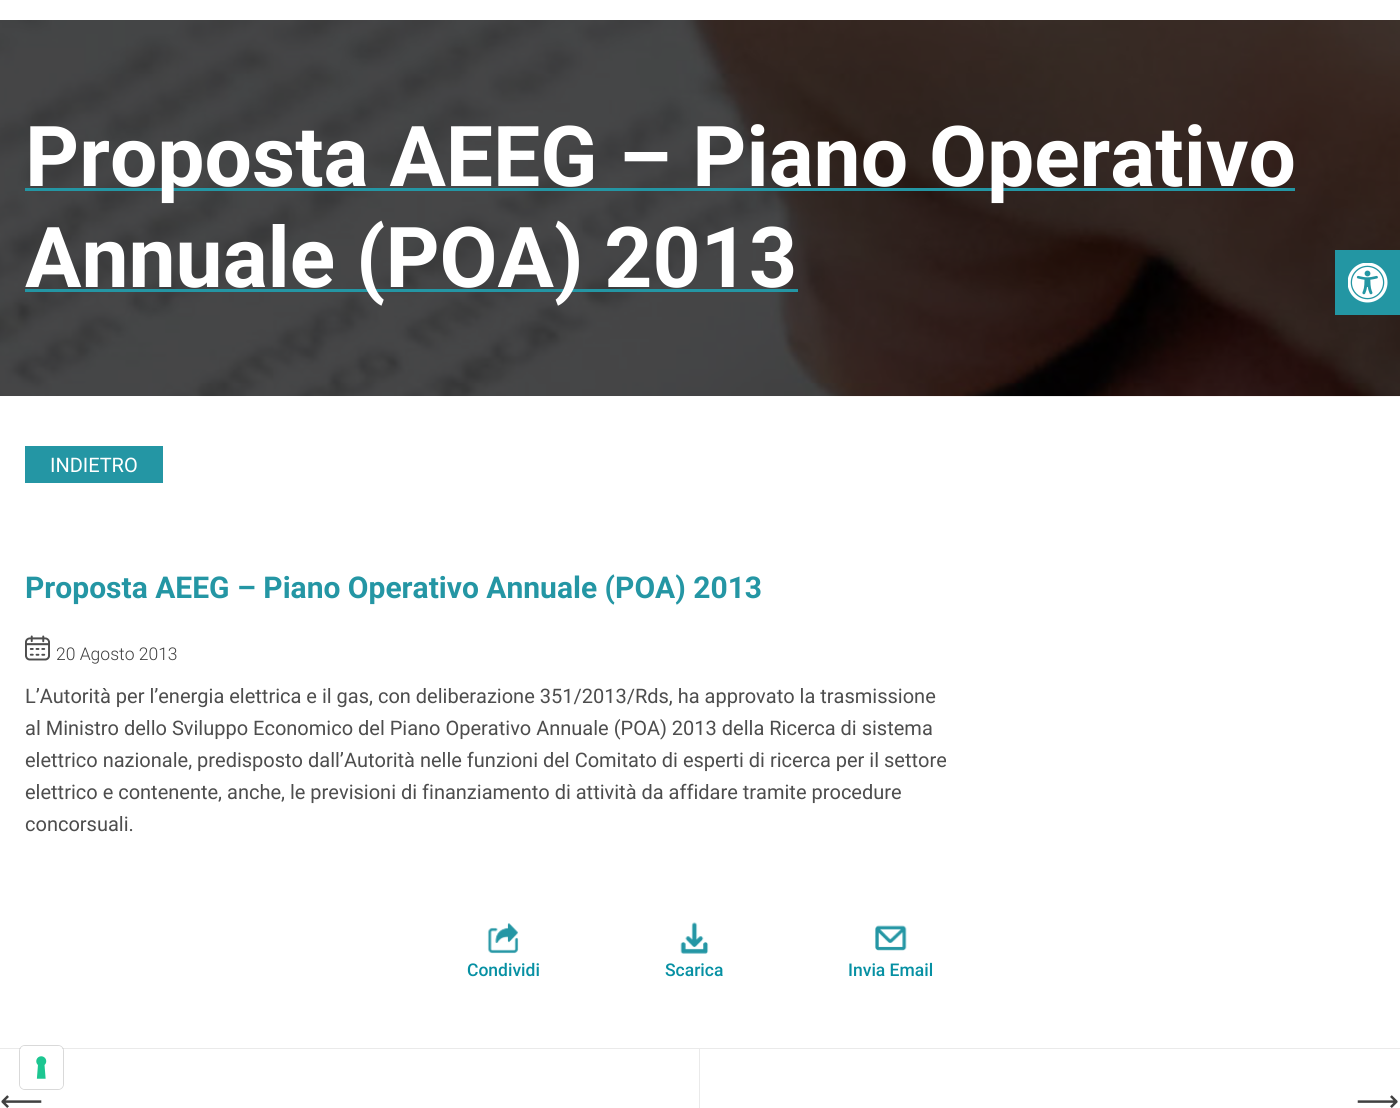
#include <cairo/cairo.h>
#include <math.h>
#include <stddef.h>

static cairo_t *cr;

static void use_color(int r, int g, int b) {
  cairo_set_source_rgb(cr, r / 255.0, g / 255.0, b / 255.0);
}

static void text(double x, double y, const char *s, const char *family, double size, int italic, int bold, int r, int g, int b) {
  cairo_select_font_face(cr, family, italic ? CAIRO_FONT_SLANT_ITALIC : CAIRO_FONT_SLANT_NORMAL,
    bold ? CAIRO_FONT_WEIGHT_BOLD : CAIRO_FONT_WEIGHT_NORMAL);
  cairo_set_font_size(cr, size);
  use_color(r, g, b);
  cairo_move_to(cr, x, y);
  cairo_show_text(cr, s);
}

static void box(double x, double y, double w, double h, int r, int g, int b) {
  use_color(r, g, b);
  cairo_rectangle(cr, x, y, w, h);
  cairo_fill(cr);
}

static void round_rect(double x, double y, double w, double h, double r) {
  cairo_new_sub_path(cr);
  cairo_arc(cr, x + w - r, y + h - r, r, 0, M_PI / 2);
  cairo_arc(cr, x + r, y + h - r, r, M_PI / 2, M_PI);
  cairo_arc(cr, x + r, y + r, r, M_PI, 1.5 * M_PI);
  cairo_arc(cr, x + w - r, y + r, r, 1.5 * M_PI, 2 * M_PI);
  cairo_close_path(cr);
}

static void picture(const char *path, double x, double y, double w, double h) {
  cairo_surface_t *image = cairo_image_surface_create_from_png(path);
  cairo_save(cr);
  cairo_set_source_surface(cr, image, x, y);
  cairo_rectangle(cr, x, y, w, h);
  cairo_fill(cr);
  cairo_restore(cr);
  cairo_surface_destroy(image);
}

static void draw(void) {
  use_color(255, 255, 255);
  cairo_paint(cr);
  box(0, 20, 1400, 376, 0, 0, 0);
  picture("img_01.png", 0, 20, 1400, 377);
  box(25, 188, 1270, 3, 36, 150, 164);
  box(25, 289, 773, 3, 36, 150, 164);
  box(25, 446, 138, 37, 36, 150, 164);
  picture("img_02.png", 25, 635, 25, 26);
  picture("img_03.png", 487, 923, 32, 31);
  picture("img_04.png", 680, 922, 29, 32);
  picture("img_05.png", 875, 925, 32, 26);
  box(0, 1048, 1400, 1, 234, 234, 234);
  box(699, 1049, 1, 59, 234, 234, 234);
  box(1335, 250, 65, 65, 35, 150, 163);
  picture("img_06.png", 1348, 263, 40, 40);
  round_rect(19.5, 1045.5, 44, 44, 5.5);
  cairo_set_source_rgba(cr, 0, 0, 0, 0.15);
  cairo_set_line_width(cr, 1);
  cairo_stroke(cr);
  use_color(255, 255, 255);
  round_rect(20, 1046, 43, 43, 5);
  cairo_fill(cr);
  picture("img_07.png", 36, 1056, 11, 23);
  text(25, 186, "Proposta AEEG – Piano Operativo", "Roboto", 84, 0, 1, 255, 255, 255);
  text(25, 287, "Annuale (POA) 2013", "Roboto", 84, 0, 1, 255, 255, 255);
  text(50, 472, "INDIETRO", "Roboto", 20, 0, 0, 255, 255, 255);
  text(25, 598, "Proposta AEEG – Piano Operativo Annuale (POA) 2013", "Roboto", 30, 0, 1, 36, 150, 164);
  text(56, 660, "20 Agosto 2013", "Roboto Light", 17.5, 0, 0, 64, 64, 64);
  text(25, 703, "L’Autorità per l’energia elettrica e il gas, con deliberazione 351/2013/Rds, ha approvato la trasmissione", "Roboto", 20, 0, 0, 77, 77, 77);
  text(25, 735, "al Ministro dello Sviluppo Economico del Piano Operativo Annuale (POA) 2013 della Ricerca di sistema", "Roboto", 20, 0, 0, 77, 77, 77);
  text(25, 767, "elettrico nazionale, predisposto dall’Autorità nelle funzioni del Comitato di esperti di ricerca per il settore", "Roboto", 20, 0, 0, 77, 77, 77);
  text(25, 799, "elettrico e contenente, anche, le previsioni di finanziamento di attività da affidare tramite procedure", "Roboto", 20, 0, 0, 77, 77, 77);
  text(25, 831, "concorsuali.", "Roboto", 20, 0, 0, 77, 77, 77);
  text(467, 976, "Condividi", "Roboto Medium", 17.5, 0, 0, 6, 144, 163);
  text(665, 976, "Scarica", "Roboto Medium", 17.5, 0, 0, 6, 144, 163);
  text(848, 976, "Invia Email", "Roboto Medium", 17.5, 0, 0, 6, 144, 163);
  text(0, 1111, "⟵", "DejaVu Sans", 30, 0, 0, 64, 64, 64);
  text(1356, 1111, "⟶", "DejaVu Sans", 30, 0, 0, 64, 64, 64);
}

int main(void) {
  cairo_surface_t *surface = cairo_image_surface_create(CAIRO_FORMAT_RGB24, 1400, 1108);
  cr = cairo_create(surface);
  cairo_font_options_t *options = cairo_font_options_create();
  cairo_font_options_set_hint_metrics(options, CAIRO_HINT_METRICS_OFF);
  cairo_font_options_set_hint_style(options, CAIRO_HINT_STYLE_NONE);
  cairo_set_font_options(cr, options);
  cairo_set_miter_limit(cr, 4);
  draw();
  cairo_surface_write_to_png(surface, "out.png");
  cairo_font_options_destroy(options);
  cairo_destroy(cr);
  cairo_surface_destroy(surface);
  return 0;
}
